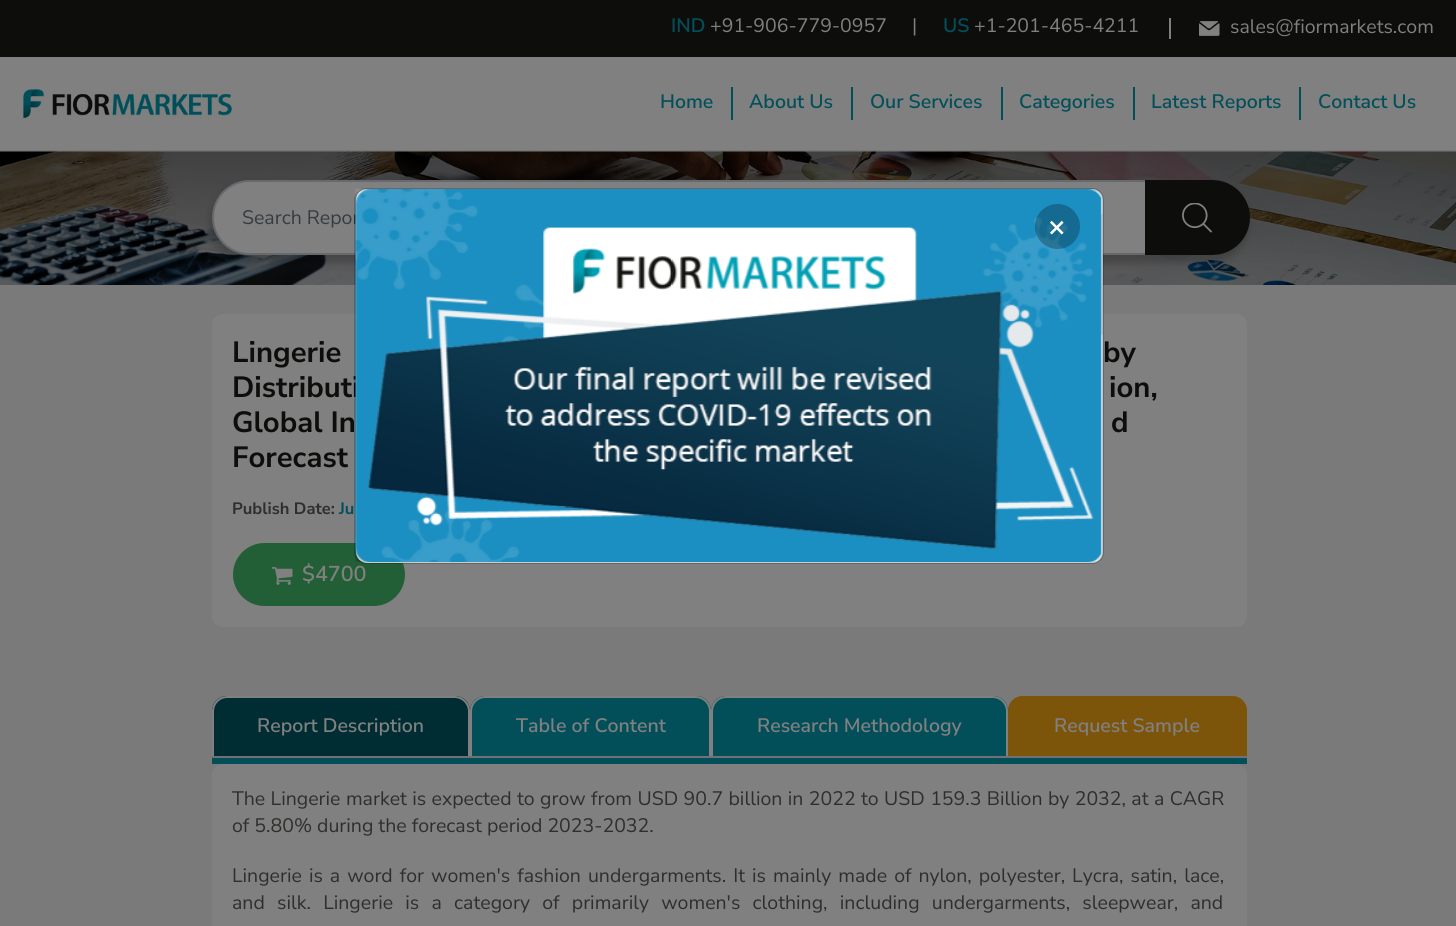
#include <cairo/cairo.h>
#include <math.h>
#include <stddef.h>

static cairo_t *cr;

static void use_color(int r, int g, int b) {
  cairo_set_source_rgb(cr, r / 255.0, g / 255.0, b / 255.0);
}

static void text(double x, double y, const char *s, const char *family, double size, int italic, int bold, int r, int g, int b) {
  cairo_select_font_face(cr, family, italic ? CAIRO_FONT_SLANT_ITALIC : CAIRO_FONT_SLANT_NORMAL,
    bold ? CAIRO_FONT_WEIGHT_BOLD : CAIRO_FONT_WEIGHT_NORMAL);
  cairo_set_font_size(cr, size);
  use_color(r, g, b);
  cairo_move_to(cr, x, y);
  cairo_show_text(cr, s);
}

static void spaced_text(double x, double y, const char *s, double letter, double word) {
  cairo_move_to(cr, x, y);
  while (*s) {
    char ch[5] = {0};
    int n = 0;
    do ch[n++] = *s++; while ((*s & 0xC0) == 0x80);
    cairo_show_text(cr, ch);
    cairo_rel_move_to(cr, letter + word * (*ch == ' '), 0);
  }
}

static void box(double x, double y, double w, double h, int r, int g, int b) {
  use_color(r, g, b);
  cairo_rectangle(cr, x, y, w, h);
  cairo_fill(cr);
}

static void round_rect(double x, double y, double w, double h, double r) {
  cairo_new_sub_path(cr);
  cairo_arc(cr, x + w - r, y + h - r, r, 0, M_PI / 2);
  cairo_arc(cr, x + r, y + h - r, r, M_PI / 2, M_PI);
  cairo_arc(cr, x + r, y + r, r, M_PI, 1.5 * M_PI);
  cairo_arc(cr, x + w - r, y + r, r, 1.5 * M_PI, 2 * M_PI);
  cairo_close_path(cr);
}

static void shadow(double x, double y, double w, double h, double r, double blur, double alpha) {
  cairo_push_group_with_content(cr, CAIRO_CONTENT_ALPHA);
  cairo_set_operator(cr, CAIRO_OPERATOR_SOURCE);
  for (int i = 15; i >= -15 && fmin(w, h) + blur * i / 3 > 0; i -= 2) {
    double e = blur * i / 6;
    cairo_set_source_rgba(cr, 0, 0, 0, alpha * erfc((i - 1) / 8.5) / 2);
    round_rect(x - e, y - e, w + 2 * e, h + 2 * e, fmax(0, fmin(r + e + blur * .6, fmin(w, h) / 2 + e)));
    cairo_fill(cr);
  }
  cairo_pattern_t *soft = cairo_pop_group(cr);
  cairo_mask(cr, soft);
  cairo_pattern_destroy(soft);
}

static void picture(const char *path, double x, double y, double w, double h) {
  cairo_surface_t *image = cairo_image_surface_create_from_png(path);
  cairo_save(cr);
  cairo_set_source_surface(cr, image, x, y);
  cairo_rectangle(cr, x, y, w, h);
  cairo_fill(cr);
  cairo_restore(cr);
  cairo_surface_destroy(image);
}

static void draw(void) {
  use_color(128, 128, 128);
  cairo_paint(cr);
  box(0, 150, 1456, 2, 119, 119, 119);
  box(0, 0, 1456, 57, 13, 13, 12);
  box(1169, 18, 2, 21, 128, 128, 128);
  picture("img_01.png", 1199, 21, 21, 15);
  picture("img_02.png", 23, 89, 209, 30);
  box(731, 87, 2, 33, 2, 79, 90);
  box(851, 87, 2, 33, 2, 79, 90);
  box(1001, 87, 2, 33, 2, 79, 90);
  box(1133, 87, 2, 33, 2, 79, 90);
  box(1299, 87, 2, 33, 2, 79, 90);
  picture("img_03.png", 0, 151, 1456, 134);
  use_color(0, 0, 0);
  shadow(210, 185, 1038, 78, 39, 4, 0.2);
  use_color(128, 128, 128);
  round_rect(213, 181, 1033, 73, 36.5);
  cairo_fill_preserve(cr);
  use_color(103, 106, 109);
  cairo_stroke(cr);
  use_color(13, 13, 12);
  cairo_new_path(cr);
  cairo_move_to(cr, 1145, 180);
  cairo_line_to(cr, 1212.5, 180);
  cairo_curve_to(cr, 1233, 180, 1250, 197, 1250, 217.5);
  cairo_curve_to(cr, 1250, 238, 1233, 255, 1212.5, 255);
  cairo_line_to(cr, 1145, 255);
  cairo_close_path(cr);
  cairo_fill(cr);
  picture("img_04.png", 1182, 203, 30, 30);
  box(0, 285, 1456, 641, 122, 122, 122);
  use_color(128, 128, 128);
  round_rect(212, 314, 1035, 313, 11);
  cairo_fill(cr);
  use_color(34, 94, 54);
  round_rect(233, 543, 172, 63, 31.5);
  cairo_fill(cr);
  picture("img_06.png", 272, 567, 21, 18);
  box(212, 758, 1035, 6, 2, 79, 90);
  box(212, 756, 1035, 2, 111, 113, 115);
  use_color(0, 45, 51);
  cairo_new_path(cr);
  cairo_move_to(cr, 227, 696);
  cairo_line_to(cr, 455, 696);
  cairo_curve_to(cr, 463.5, 696, 470, 702.5, 470, 711);
  cairo_line_to(cr, 470, 756);
  cairo_line_to(cr, 212, 756);
  cairo_line_to(cr, 212, 711);
  cairo_curve_to(cr, 212, 702.5, 218.5, 696, 227, 696);
  cairo_close_path(cr);
  cairo_fill(cr);
  cairo_save(cr);
  cairo_rectangle(cr, 212, 686, 1035, 70);
  cairo_clip(cr);
  cairo_new_path(cr);
  cairo_move_to(cr, 227, 697);
  cairo_line_to(cr, 455, 697);
  cairo_curve_to(cr, 462.5, 697, 469, 703.5, 469, 711);
  cairo_line_to(cr, 469, 757);
  cairo_line_to(cr, 213, 757);
  cairo_line_to(cr, 213, 711);
  cairo_curve_to(cr, 213, 703.5, 219.5, 697, 227, 697);
  cairo_close_path(cr);
  use_color(128, 128, 128);
  cairo_stroke(cr);
  cairo_restore(cr);
  use_color(2, 79, 90);
  cairo_new_path(cr);
  cairo_move_to(cr, 485, 696);
  cairo_line_to(cr, 696, 696);
  cairo_curve_to(cr, 704.5, 696, 711, 702.5, 711, 711);
  cairo_line_to(cr, 711, 756);
  cairo_line_to(cr, 470, 756);
  cairo_line_to(cr, 470, 711);
  cairo_curve_to(cr, 470, 702.5, 476.5, 696, 485, 696);
  cairo_close_path(cr);
  cairo_fill(cr);
  cairo_save(cr);
  cairo_rectangle(cr, 212, 686, 1035, 70);
  cairo_clip(cr);
  cairo_new_path(cr);
  cairo_move_to(cr, 485, 697);
  cairo_line_to(cr, 696, 697);
  cairo_curve_to(cr, 703.5, 697, 710, 703.5, 710, 711);
  cairo_line_to(cr, 710, 757);
  cairo_line_to(cr, 471, 757);
  cairo_line_to(cr, 471, 711);
  cairo_curve_to(cr, 471, 703.5, 477.5, 697, 485, 697);
  cairo_close_path(cr);
  use_color(128, 128, 128);
  cairo_stroke(cr);
  cairo_restore(cr);
  cairo_new_path(cr);
  cairo_move_to(cr, 726, 696);
  cairo_line_to(cr, 993, 696);
  cairo_curve_to(cr, 1001.5, 696, 1008, 702.5, 1008, 711);
  cairo_line_to(cr, 1008, 756);
  cairo_line_to(cr, 711, 756);
  cairo_line_to(cr, 711, 711);
  cairo_curve_to(cr, 711, 702.5, 717.5, 696, 726, 696);
  cairo_close_path(cr);
  cairo_fill(cr);
  cairo_save(cr);
  cairo_rectangle(cr, 212, 686, 1035, 70);
  cairo_clip(cr);
  cairo_new_path(cr);
  cairo_move_to(cr, 726, 697);
  cairo_line_to(cr, 993, 697);
  cairo_curve_to(cr, 1000.5, 697, 1007, 703.5, 1007, 711);
  cairo_line_to(cr, 1007, 757);
  cairo_line_to(cr, 712, 757);
  cairo_line_to(cr, 712, 711);
  cairo_curve_to(cr, 712, 703.5, 718.5, 697, 726, 697);
  cairo_close_path(cr);
  use_color(128, 128, 128);
  cairo_stroke(cr);
  cairo_restore(cr);
  use_color(124, 84, 10);
  cairo_new_path(cr);
  cairo_move_to(cr, 1023, 696);
  cairo_line_to(cr, 1232, 696);
  cairo_curve_to(cr, 1240.5, 696, 1247, 702.5, 1247, 711);
  cairo_line_to(cr, 1247, 756);
  cairo_line_to(cr, 1008, 756);
  cairo_line_to(cr, 1008, 711);
  cairo_curve_to(cr, 1008, 702.5, 1014.5, 696, 1023, 696);
  cairo_close_path(cr);
  cairo_fill(cr);
  cairo_save(cr);
  cairo_rectangle(cr, 212, 686, 1035, 70);
  cairo_clip(cr);
  cairo_new_path(cr);
  cairo_move_to(cr, 1023, 697);
  cairo_line_to(cr, 1232, 697);
  cairo_curve_to(cr, 1239.5, 697, 1246, 703.5, 1246, 711);
  cairo_line_to(cr, 1246, 757);
  cairo_line_to(cr, 1009, 757);
  cairo_line_to(cr, 1009, 711);
  cairo_curve_to(cr, 1009, 703.5, 1015.5, 697, 1023, 697);
  cairo_close_path(cr);
  cairo_stroke(cr);
  cairo_restore(cr);
  use_color(128, 128, 128);
  round_rect(212, 764, 1035, 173, 11);
  cairo_fill(cr);
  text(671, 32, "IND", "Nunito Sans SemiBold", 19.5, 0, 0, 2, 79, 90);
  text(710, 32, "+91-906-779-0957", "Nunito Sans", 19.5, 0, 0, 128, 128, 128);
  text(912, 32, "|", "Nunito Sans", 19.5, 0, 0, 128, 128, 128);
  text(943, 32, "US", "Nunito Sans SemiBold", 19.5, 0, 0, 2, 79, 90);
  text(974, 32, "+1-201-465-4211", "Nunito Sans", 19.5, 0, 0, 128, 128, 128);
  text(1230, 33, "sales@fiormarkets.com", "Nunito Sans", 19.5, 0, 0, 128, 128, 128);
  text(660, 108, "Home", "Nunito Sans SemiBold", 19.5, 0, 0, 2, 79, 90);
  text(749, 108, "About Us", "Nunito Sans SemiBold", 19.5, 0, 0, 2, 79, 90);
  text(870, 108, "Our Services", "Nunito Sans SemiBold", 19.5, 0, 0, 2, 79, 90);
  text(1019, 108, "Categories", "Nunito Sans SemiBold", 19.5, 0, 0, 2, 79, 90);
  text(1151, 108, "Latest Reports", "Nunito Sans SemiBold", 19.5, 0, 0, 2, 79, 90);
  text(1318, 108, "Contact Us", "Nunito Sans SemiBold", 19.5, 0, 0, 2, 79, 90);
  text(242, 224, "Search Repor", "Nunito Sans", 19.5, 0, 0, 54, 59, 63);
  text(232, 362, "Lingerie", "Nunito Sans", 29.25, 0, 1, 13, 13, 12);
  text(1103, 362, "by", "Nunito Sans", 29.25, 0, 1, 13, 13, 12);
  text(232, 397, "Distributi", "Nunito Sans", 29.25, 0, 1, 13, 13, 12);
  use_color(255, 255, 255);
  round_rect(356, 189, 747, 374, 11);
  cairo_fill(cr);
  text(1109, 397, "ion,", "Nunito Sans", 29.25, 0, 1, 13, 13, 12);
  text(232, 432, "Global In", "Nunito Sans", 29.25, 0, 1, 13, 13, 12);
  text(1111, 432, "d", "Nunito Sans", 29.25, 0, 1, 13, 13, 12);
  text(232, 467, "Forecast", "Nunito Sans", 29.25, 0, 1, 13, 13, 12);
  text(232, 514, "Publish Date:", "Nunito Sans", 16.5, 0, 1, 46, 46, 45);
  text(339, 514, "Ju", "Nunito Sans", 16.5, 0, 1, 2, 79, 90);
  text(302, 581, "$4700", "Nunito Sans SemiBold", 21.5, 0, 0, 128, 128, 128);
  round_rect(355, 189, 748, 374, 11);
  cairo_set_source_rgba(cr, 0, 0, 0, 0.2);
  cairo_stroke(cr);
  picture("img_05.png", 355, 189, 748, 373);
  cairo_set_source_rgba(cr, 0, 0, 0, 0.26);
  cairo_arc(cr, 1057.5, 226.5, 22.5, 0, 2 * M_PI);
  cairo_fill(cr);
  text(1048, 236, "×", "Nunito Sans", 29.25, 0, 1, 255, 255, 255);
  text(257, 732, "Report Description", "Nunito Sans SemiBold", 19.5, 0, 0, 128, 128, 128);
  text(516, 732, "Table of Content", "Nunito Sans SemiBold", 19.5, 0, 0, 128, 128, 128);
  text(757, 732, "Research Methodology", "Nunito Sans SemiBold", 19.5, 0, 0, 128, 128, 128);
  text(1054, 732, "Request Sample", "Nunito Sans SemiBold", 19.5, 0, 0, 128, 128, 128);
  cairo_select_font_face(cr, "Nunito Sans", CAIRO_FONT_SLANT_NORMAL, CAIRO_FONT_WEIGHT_NORMAL);
  use_color(46, 46, 45);
  spaced_text(232, 805, "The Lingerie market is expected to grow from USD 90.7 billion in 2022 to USD 159.3 Billion by 2032, at a CAGR", 0, 0.4);
  text(232, 832, "of 5.80% during the forecast period 2023-2032.", "Nunito Sans", 19.5, 0, 0, 46, 46, 45);
  spaced_text(232, 882, "Lingerie is a word for women's fashion undergarments. It is mainly made of nylon, polyester, Lycra, satin, lace,", 0, 2);
  spaced_text(232, 909, "and silk. Lingerie is a category of primarily women's clothing, including undergarments, sleepwear, and", 0, 7.25);
}

int main(void) {
  cairo_surface_t *surface = cairo_image_surface_create(CAIRO_FORMAT_RGB24, 1456, 926);
  cr = cairo_create(surface);
  cairo_font_options_t *options = cairo_font_options_create();
  cairo_font_options_set_hint_metrics(options, CAIRO_HINT_METRICS_OFF);
  cairo_font_options_set_hint_style(options, CAIRO_HINT_STYLE_NONE);
  cairo_set_font_options(cr, options);
  cairo_set_miter_limit(cr, 4);
  draw();
  cairo_surface_write_to_png(surface, "out.png");
  cairo_font_options_destroy(options);
  cairo_destroy(cr);
  cairo_surface_destroy(surface);
  return 0;
}
